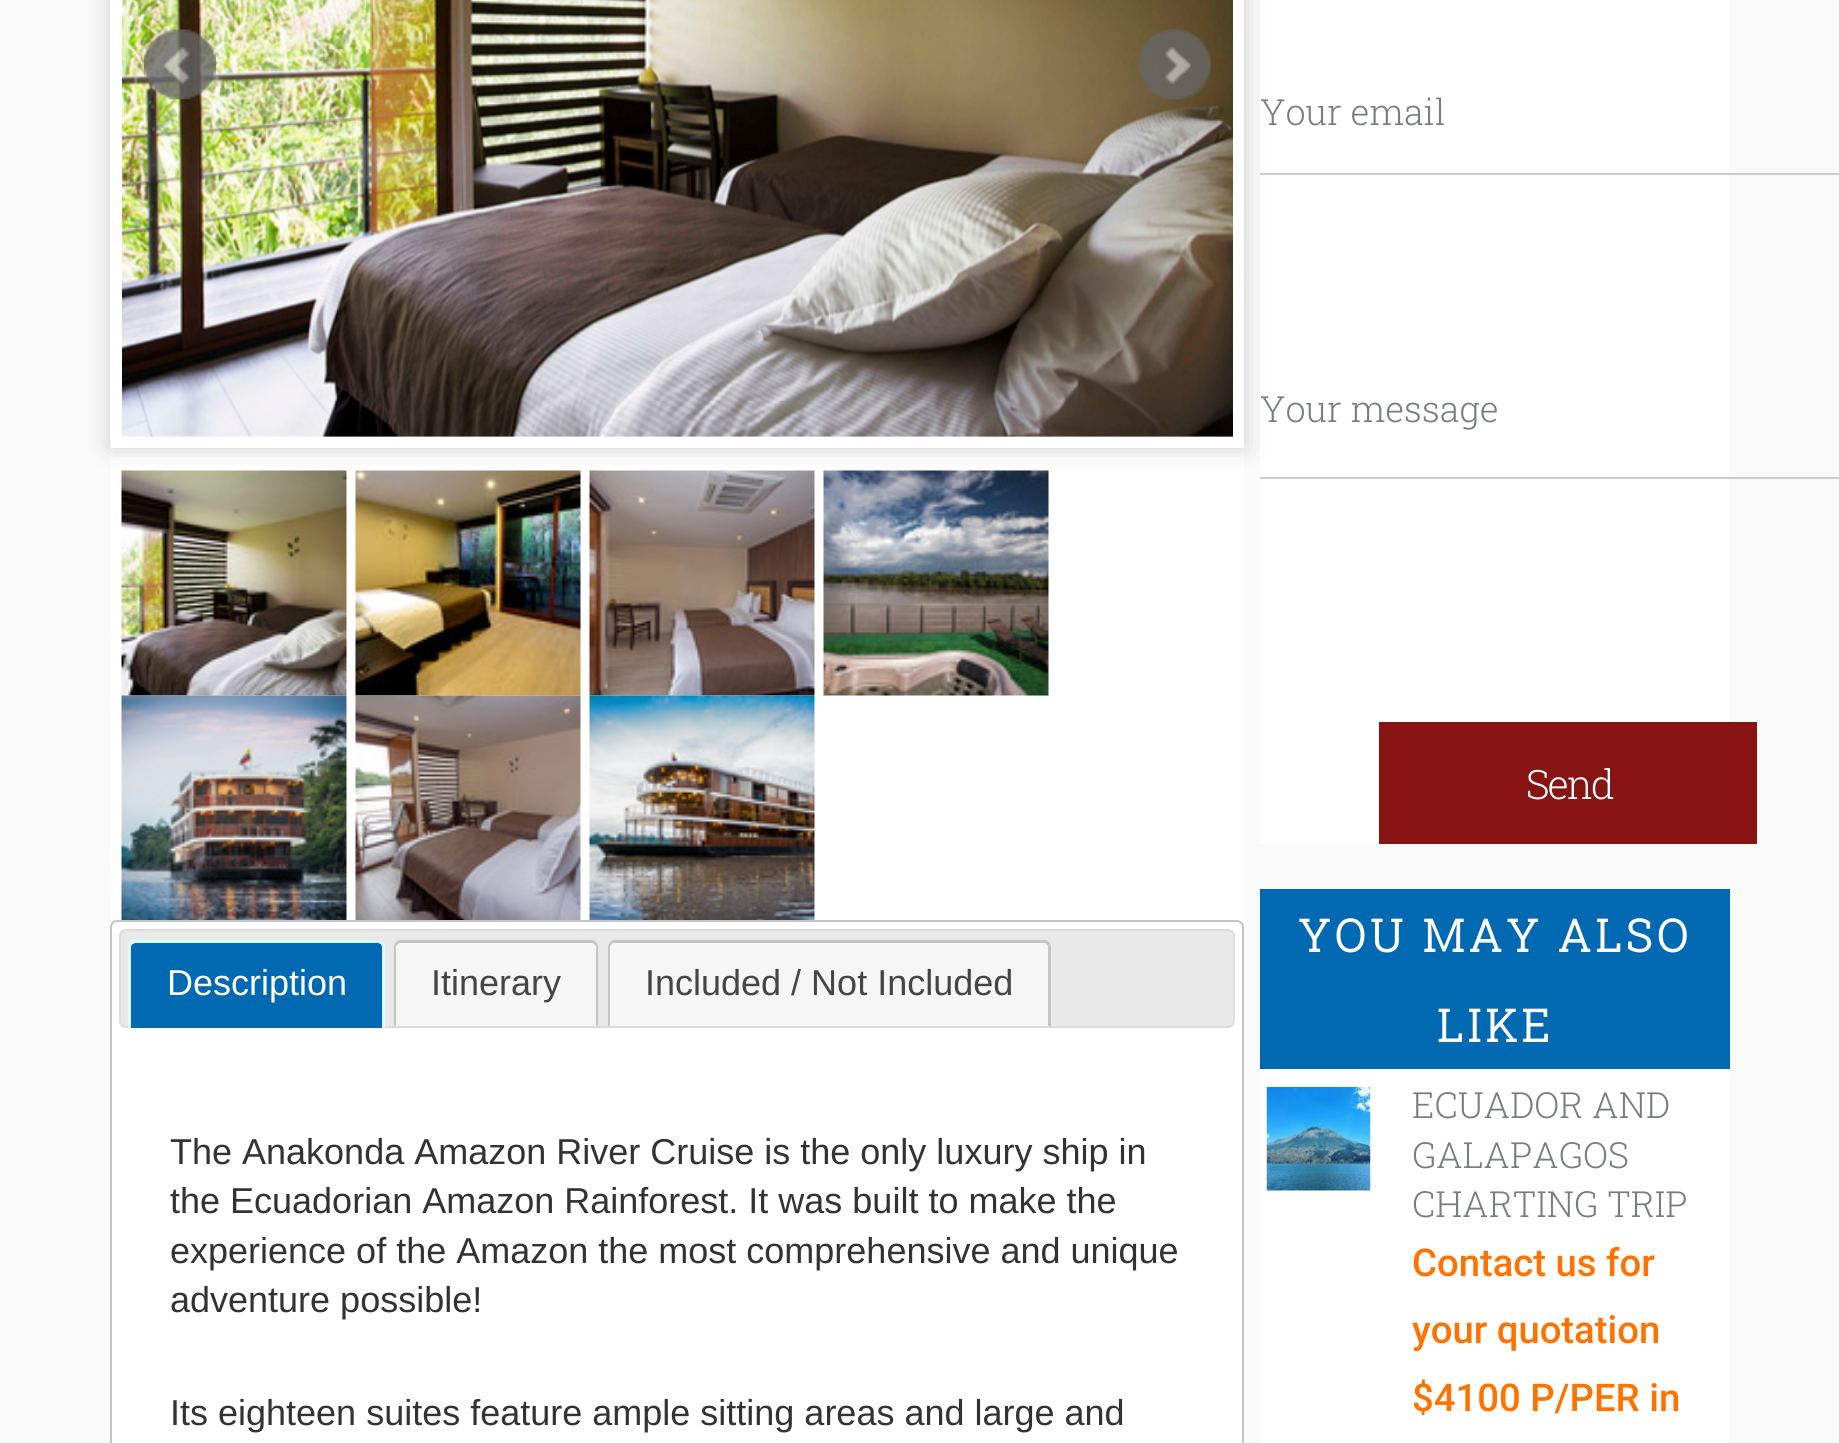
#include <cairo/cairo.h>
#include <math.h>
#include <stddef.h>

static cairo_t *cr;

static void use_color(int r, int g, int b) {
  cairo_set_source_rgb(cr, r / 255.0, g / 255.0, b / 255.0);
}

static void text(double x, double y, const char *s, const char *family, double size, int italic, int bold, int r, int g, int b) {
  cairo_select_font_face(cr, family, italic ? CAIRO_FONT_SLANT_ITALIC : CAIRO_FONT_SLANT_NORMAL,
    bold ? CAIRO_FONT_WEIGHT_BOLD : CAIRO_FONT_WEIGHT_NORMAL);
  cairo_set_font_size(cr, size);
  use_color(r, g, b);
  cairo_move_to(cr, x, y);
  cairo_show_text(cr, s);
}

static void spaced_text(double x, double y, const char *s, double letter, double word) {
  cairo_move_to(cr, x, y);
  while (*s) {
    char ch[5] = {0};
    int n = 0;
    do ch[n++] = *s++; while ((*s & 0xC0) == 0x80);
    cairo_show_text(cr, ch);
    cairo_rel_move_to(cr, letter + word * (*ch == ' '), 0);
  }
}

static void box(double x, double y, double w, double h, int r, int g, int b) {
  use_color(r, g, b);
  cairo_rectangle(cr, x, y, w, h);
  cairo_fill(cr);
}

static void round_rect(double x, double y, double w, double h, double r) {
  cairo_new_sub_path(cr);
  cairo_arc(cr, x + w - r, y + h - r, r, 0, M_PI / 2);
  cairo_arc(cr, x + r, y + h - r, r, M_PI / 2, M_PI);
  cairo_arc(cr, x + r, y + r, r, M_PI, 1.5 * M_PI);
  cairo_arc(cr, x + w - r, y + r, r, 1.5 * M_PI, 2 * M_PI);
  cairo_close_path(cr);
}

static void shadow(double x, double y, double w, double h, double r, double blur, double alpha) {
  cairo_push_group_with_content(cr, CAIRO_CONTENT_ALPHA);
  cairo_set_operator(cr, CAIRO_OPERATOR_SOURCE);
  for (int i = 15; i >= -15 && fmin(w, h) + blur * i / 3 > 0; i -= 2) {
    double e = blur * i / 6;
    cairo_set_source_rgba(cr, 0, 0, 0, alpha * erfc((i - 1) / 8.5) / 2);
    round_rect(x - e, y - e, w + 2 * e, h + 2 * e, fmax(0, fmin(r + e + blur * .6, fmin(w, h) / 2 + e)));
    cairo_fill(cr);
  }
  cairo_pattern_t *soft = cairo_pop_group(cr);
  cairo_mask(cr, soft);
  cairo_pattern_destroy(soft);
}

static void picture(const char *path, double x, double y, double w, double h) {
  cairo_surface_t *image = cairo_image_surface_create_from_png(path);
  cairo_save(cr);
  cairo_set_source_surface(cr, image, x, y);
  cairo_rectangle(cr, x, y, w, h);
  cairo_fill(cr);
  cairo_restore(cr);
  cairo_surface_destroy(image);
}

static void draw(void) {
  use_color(250, 250, 250);
  cairo_paint(cr);
  box(110, 448, 1134, 479, 255, 255, 255);
  picture("img_04.png", 121, 470, 226, 226);
  picture("img_05.png", 355, 470, 226, 226);
  picture("img_06.png", 589, 470, 226, 226);
  picture("img_07.png", 823, 470, 226, 226);
  box(1260, 0, 470, 844, 255, 255, 255);
  use_color(204, 204, 204);
  shadow(110, -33, 1134, 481, 0, 11, 1);
  box(110, 0, 1134, 448, 255, 255, 255);
  picture("img_01.png", 122, 0, 1111, 437);
  picture("img_02.png", 144, 29, 72, 71);
  picture("img_03.png", 1138, 29, 73, 71);
  picture("img_08.png", 121, 695, 226, 225);
  picture("img_09.png", 355, 695, 226, 225);
  picture("img_10.png", 589, 695, 226, 225);
  round_rect(111, 921, 1132, 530, 6);
  cairo_fill_preserve(cr);
  use_color(197, 197, 197);
  cairo_stroke(cr);
  use_color(233, 233, 233);
  round_rect(120, 930, 1114, 97, 6);
  cairo_fill_preserve(cr);
  use_color(221, 221, 221);
  cairo_stroke(cr);
  use_color(0, 105, 177);
  cairo_new_path(cr);
  cairo_move_to(cr, 136, 943);
  cairo_line_to(cr, 378, 943);
  cairo_curve_to(cr, 381, 943, 383, 945, 383, 948);
  cairo_line_to(cr, 383, 1028);
  cairo_line_to(cr, 131, 1028);
  cairo_line_to(cr, 131, 948);
  cairo_curve_to(cr, 131, 945, 133, 943, 136, 943);
  cairo_close_path(cr);
  cairo_fill(cr);
  use_color(218, 252, 255);
  cairo_set_fill_rule(cr, CAIRO_FILL_RULE_EVEN_ODD);
  cairo_new_path(cr);
  cairo_move_to(cr, 135, 940);
  cairo_line_to(cr, 378, 940);
  cairo_curve_to(cr, 382, 940, 385, 944, 385, 947);
  cairo_line_to(cr, 385, 1028);
  cairo_line_to(cr, 128, 1028);
  cairo_line_to(cr, 128, 947);
  cairo_curve_to(cr, 128, 944, 131, 940, 135, 940);
  cairo_close_path(cr);
  cairo_move_to(cr, 135, 943);
  cairo_line_to(cr, 378, 943);
  cairo_curve_to(cr, 380, 943, 382, 945, 382, 947);
  cairo_line_to(cr, 382, 1028);
  cairo_line_to(cr, 130, 1028);
  cairo_line_to(cr, 130, 947);
  cairo_curve_to(cr, 130, 945, 133, 943, 135, 943);
  cairo_close_path(cr);
  cairo_fill(cr);
  use_color(246, 246, 246);
  cairo_new_path(cr);
  cairo_move_to(cr, 401, 943);
  cairo_line_to(cr, 591, 943);
  cairo_curve_to(cr, 594, 943, 596, 945, 596, 948);
  cairo_line_to(cr, 596, 1026);
  cairo_line_to(cr, 396, 1026);
  cairo_line_to(cr, 396, 948);
  cairo_curve_to(cr, 396, 945, 398, 943, 401, 943);
  cairo_close_path(cr);
  cairo_fill(cr);
  use_color(197, 197, 197);
  cairo_new_path(cr);
  cairo_move_to(cr, 400, 940);
  cairo_line_to(cr, 592, 940);
  cairo_curve_to(cr, 595, 940, 598, 944, 598, 947);
  cairo_line_to(cr, 598, 1026);
  cairo_line_to(cr, 394, 1026);
  cairo_line_to(cr, 394, 947);
  cairo_curve_to(cr, 394, 944, 397, 940, 400, 940);
  cairo_close_path(cr);
  cairo_move_to(cr, 400, 943);
  cairo_line_to(cr, 592, 943);
  cairo_curve_to(cr, 594, 943, 596, 945, 596, 947);
  cairo_line_to(cr, 596, 1026);
  cairo_line_to(cr, 396, 1026);
  cairo_line_to(cr, 396, 947);
  cairo_curve_to(cr, 396, 945, 398, 943, 400, 943);
  cairo_close_path(cr);
  cairo_fill(cr);
  use_color(246, 246, 246);
  cairo_new_path(cr);
  cairo_move_to(cr, 615, 943);
  cairo_line_to(cr, 1044, 943);
  cairo_curve_to(cr, 1047, 943, 1049, 945, 1049, 948);
  cairo_line_to(cr, 1049, 1026);
  cairo_line_to(cr, 610, 1026);
  cairo_line_to(cr, 610, 948);
  cairo_curve_to(cr, 610, 945, 612, 943, 615, 943);
  cairo_close_path(cr);
  cairo_fill(cr);
  use_color(197, 197, 197);
  cairo_new_path(cr);
  cairo_move_to(cr, 614, 940);
  cairo_line_to(cr, 1044, 940);
  cairo_curve_to(cr, 1048, 940, 1051, 944, 1051, 947);
  cairo_line_to(cr, 1051, 1026);
  cairo_line_to(cr, 608, 1026);
  cairo_line_to(cr, 608, 947);
  cairo_curve_to(cr, 608, 944, 611, 940, 614, 940);
  cairo_close_path(cr);
  cairo_move_to(cr, 614, 943);
  cairo_line_to(cr, 1044, 943);
  cairo_curve_to(cr, 1046, 943, 1048, 945, 1048, 947);
  cairo_line_to(cr, 1048, 1026);
  cairo_line_to(cr, 610, 1026);
  cairo_line_to(cr, 610, 947);
  cairo_curve_to(cr, 610, 945, 612, 943, 614, 943);
  cairo_close_path(cr);
  cairo_fill(cr);
  box(1260, 173, 579, 2, 204, 204, 204);
  box(1260, 477, 579, 2, 204, 204, 204);
  box(1379, 722, 378, 122, 136, 19, 19);
  box(1260, 1069, 470, 374, 255, 255, 255);
  box(1260, 889, 470, 180, 0, 105, 177);
  picture("img_11.png", 1266, 1087, 105, 104);
  text(167, 995, "Description", "Liberation Sans", 36, 0, 0, 255, 255, 255);
  text(431, 995, "Itinerary", "Liberation Sans", 36, 0, 0, 69, 69, 69);
  text(645, 995, "Included / Not Included", "Liberation Sans", 36, 0, 0, 69, 69, 69);
  text(170, 1164, "The Anakonda Amazon River Cruise is the only luxury ship in", "Liberation Sans", 36, 0, 0, 51, 51, 51);
  text(170, 1213, "the Ecuadorian Amazon Rainforest. It was built to make the", "Liberation Sans", 36, 0, 0, 51, 51, 51);
  text(170, 1263, "experience of the Amazon the most comprehensive and unique", "Liberation Sans", 36, 0, 0, 51, 51, 51);
  text(170, 1312, "adventure possible!", "Liberation Sans", 36, 0, 0, 51, 51, 51);
  text(170, 1425, "Its eighteen suites feature ample sitting areas and large and", "Liberation Sans", 36, 0, 0, 51, 51, 51);
  text(1260, 125, "Your email", "Roboto Slab Light", 36, 0, 0, 121, 125, 124);
  text(1260, 422, "Your message", "Roboto Slab Light", 36, 0, 0, 121, 125, 124);
  cairo_set_font_size(cr, 40.5);
  use_color(255, 255, 255);
  spaced_text(1526, 799, "Send", -2, 0);
  cairo_select_font_face(cr, "Roboto Slab", CAIRO_FONT_SLANT_NORMAL, CAIRO_FONT_WEIGHT_BOLD);
  cairo_set_font_size(cr, 45);
  spaced_text(1298, 952, "YOU MAY ALSO", 4.5, 0);
  spaced_text(1437, 1042, "LIKE", 4.5, 0);
  text(1412, 1118, "ECUADOR AND", "Roboto Slab Light", 36, 0, 0, 121, 125, 124);
  text(1412, 1168, "GALAPAGOS", "Roboto Slab Light", 36, 0, 0, 121, 125, 124);
  text(1412, 1217, "CHARTING TRIP", "Roboto Slab Light", 36, 0, 0, 121, 125, 124);
  text(1412, 1276, "Contact us for", "Roboto Medium", 38.25, 0, 0, 255, 114, 0);
  text(1412, 1343, "your quotation", "Roboto Medium", 38.25, 0, 0, 255, 114, 0);
  text(1412, 1411, "$4100 P/PER in", "Roboto Medium", 38.25, 0, 0, 255, 114, 0);
}

int main(void) {
  cairo_surface_t *surface = cairo_image_surface_create(CAIRO_FORMAT_RGB24, 1839, 1443);
  cr = cairo_create(surface);
  cairo_font_options_t *options = cairo_font_options_create();
  cairo_font_options_set_hint_metrics(options, CAIRO_HINT_METRICS_OFF);
  cairo_font_options_set_hint_style(options, CAIRO_HINT_STYLE_NONE);
  cairo_set_font_options(cr, options);
  cairo_set_miter_limit(cr, 4);
  draw();
  cairo_surface_write_to_png(surface, "out.png");
  cairo_font_options_destroy(options);
  cairo_destroy(cr);
  cairo_surface_destroy(surface);
  return 0;
}
